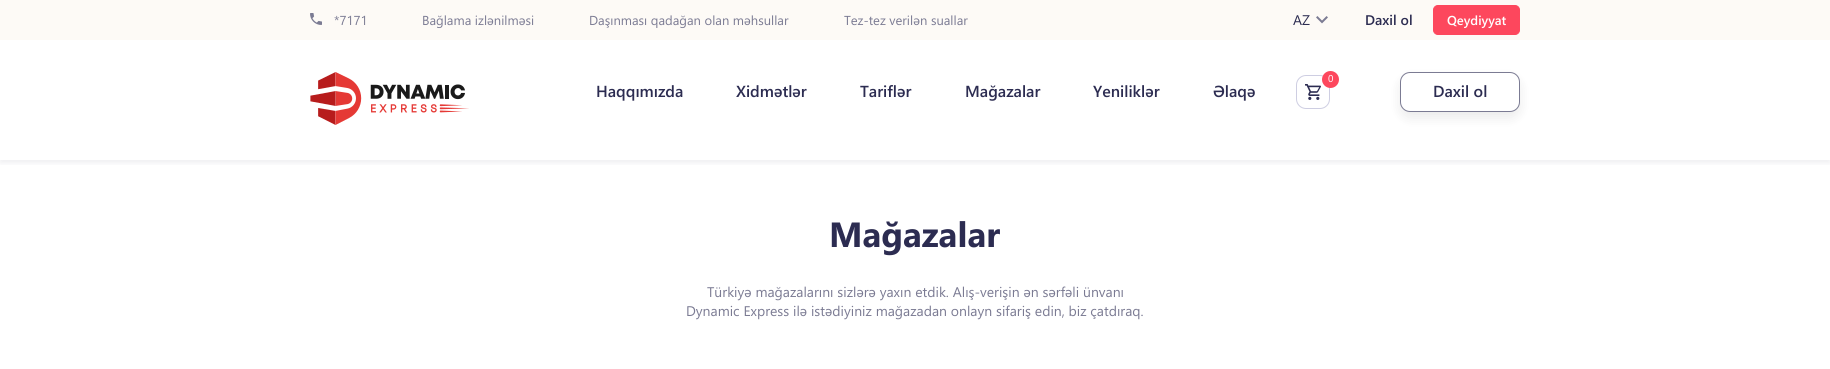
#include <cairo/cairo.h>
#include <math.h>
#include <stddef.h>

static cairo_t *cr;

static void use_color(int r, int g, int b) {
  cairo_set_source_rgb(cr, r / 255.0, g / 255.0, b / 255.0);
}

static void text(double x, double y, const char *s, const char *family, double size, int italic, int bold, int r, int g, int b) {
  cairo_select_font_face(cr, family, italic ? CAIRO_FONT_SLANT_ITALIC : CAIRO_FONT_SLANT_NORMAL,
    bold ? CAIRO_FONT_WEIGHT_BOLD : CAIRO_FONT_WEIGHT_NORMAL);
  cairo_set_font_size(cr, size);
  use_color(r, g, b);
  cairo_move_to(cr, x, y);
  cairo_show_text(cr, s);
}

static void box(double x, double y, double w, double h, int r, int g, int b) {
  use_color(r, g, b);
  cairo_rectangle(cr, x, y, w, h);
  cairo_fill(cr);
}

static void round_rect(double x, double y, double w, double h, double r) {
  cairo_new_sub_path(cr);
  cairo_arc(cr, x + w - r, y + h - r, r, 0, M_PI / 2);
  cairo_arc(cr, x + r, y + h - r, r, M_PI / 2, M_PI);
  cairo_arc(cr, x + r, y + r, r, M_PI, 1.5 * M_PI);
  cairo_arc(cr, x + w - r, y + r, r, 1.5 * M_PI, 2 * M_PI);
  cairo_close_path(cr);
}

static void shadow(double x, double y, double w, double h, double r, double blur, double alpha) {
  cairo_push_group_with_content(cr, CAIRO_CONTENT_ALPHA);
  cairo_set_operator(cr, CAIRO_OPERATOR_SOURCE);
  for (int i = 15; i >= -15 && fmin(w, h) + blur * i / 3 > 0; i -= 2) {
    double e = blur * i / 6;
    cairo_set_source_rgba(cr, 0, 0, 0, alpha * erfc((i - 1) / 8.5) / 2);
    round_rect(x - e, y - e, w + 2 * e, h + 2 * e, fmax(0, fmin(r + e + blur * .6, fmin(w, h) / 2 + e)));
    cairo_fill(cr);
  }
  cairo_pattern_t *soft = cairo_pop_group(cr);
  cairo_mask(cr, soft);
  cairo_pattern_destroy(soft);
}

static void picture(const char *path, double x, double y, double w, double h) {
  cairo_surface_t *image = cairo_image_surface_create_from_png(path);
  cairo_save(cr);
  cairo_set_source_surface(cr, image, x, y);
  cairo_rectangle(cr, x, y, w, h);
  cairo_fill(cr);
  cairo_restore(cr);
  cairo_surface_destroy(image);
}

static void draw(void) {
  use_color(255, 255, 255);
  cairo_paint(cr);
  cairo_save(cr);
  cairo_rectangle(cr, 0, 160, 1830, 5);
  cairo_clip(cr);
  use_color(44, 44, 81);
  shadow(0, 3, 1830, 160, 0, 3, 0.08);
  cairo_restore(cr);
  box(0, 0, 1830, 40, 253, 250, 246);
  picture("img_01.png", 310, 13, 12, 12);
  picture("img_02.png", 1316, 16, 12, 8);
  use_color(253, 71, 93);
  round_rect(1433.5, 5.5, 86, 29, 4.5);
  cairo_fill_preserve(cr);
  cairo_set_line_width(cr, 1);
  cairo_stroke(cr);
  picture("img_03.png", 310, 72, 159, 53);
  round_rect(1296.5, 75.5, 33, 33, 9.5);
  use_color(206, 206, 226);
  cairo_stroke(cr);
  use_color(253, 71, 93);
  cairo_arc(cr, 1330.5, 79.5, 8.5, 0, 2 * M_PI);
  cairo_fill(cr);
  picture("img_04.png", 1305, 84, 16, 16);
  use_color(0, 0, 0);
  shadow(1400, 78, 120, 40, 10, 6, 0.08);
  use_color(255, 255, 255);
  round_rect(1400.5, 72.5, 119, 39, 9.5);
  cairo_fill_preserve(cr);
  use_color(123, 123, 147);
  cairo_stroke(cr);
  text(334, 25, "*7171", "Segoe UI", 13, 0, 0, 123, 123, 147);
  text(422, 25, "Bağlama izlənilməsi", "Segoe UI", 13, 0, 0, 123, 123, 147);
  text(589, 25, "Daşınması qadağan olan məhsullar", "Segoe UI", 13, 0, 0, 123, 123, 147);
  text(844, 25, "Tez-tez verilən suallar", "Segoe UI", 13, 0, 0, 123, 123, 147);
  text(1293, 25, "AZ", "Segoe UI", 14, 0, 0, 44, 44, 81);
  text(1365, 25, "Daxil ol", "Segoe UI SemiBold", 14, 0, 0, 44, 44, 81);
  text(1447, 25, "Qeydiyyat", "Segoe UI SemiBold", 13, 0, 0, 255, 255, 255);
  text(1328, 82, "0", "Segoe UI", 10, 0, 0, 255, 255, 255);
  text(596, 97, "Haqqımızda", "Segoe UI SemiBold", 16, 0, 0, 44, 44, 81);
  text(736, 97, "Xidmətlər", "Segoe UI SemiBold", 16, 0, 0, 44, 44, 81);
  text(860, 97, "Tariflər", "Segoe UI SemiBold", 16, 0, 0, 44, 44, 81);
  text(965, 97, "Mağazalar", "Segoe UI SemiBold", 16, 0, 0, 44, 44, 81);
  text(1093, 97, "Yeniliklər", "Segoe UI SemiBold", 16, 0, 0, 44, 44, 81);
  text(1213, 97, "Əlaqə", "Segoe UI SemiBold", 16, 0, 0, 44, 44, 81);
  text(1433, 97, "Daxil ol", "Segoe UI SemiBold", 16, 0, 0, 44, 44, 81);
  text(829, 247, "Mağazalar", "Segoe UI", 35, 0, 1, 44, 44, 81);
  text(707, 297, "Türkiyə mağazalarını sizlərə yaxın etdik. Alış-verişin ən sərfəli ünvanı", "Segoe UI", 14, 0, 0, 123, 123, 147);
  text(686, 316, "Dynamic Express ilə istədiyiniz mağazadan onlayn sifariş edin, biz çatdıraq.", "Segoe UI", 14, 0, 0, 123, 123, 147);
}

int main(void) {
  cairo_surface_t *surface = cairo_image_surface_create(CAIRO_FORMAT_RGB24, 1830, 369);
  cr = cairo_create(surface);
  cairo_font_options_t *options = cairo_font_options_create();
  cairo_font_options_set_hint_metrics(options, CAIRO_HINT_METRICS_OFF);
  cairo_font_options_set_hint_style(options, CAIRO_HINT_STYLE_NONE);
  cairo_set_font_options(cr, options);
  cairo_set_miter_limit(cr, 4);
  draw();
  cairo_surface_write_to_png(surface, "out.png");
  cairo_font_options_destroy(options);
  cairo_destroy(cr);
  cairo_surface_destroy(surface);
  return 0;
}
